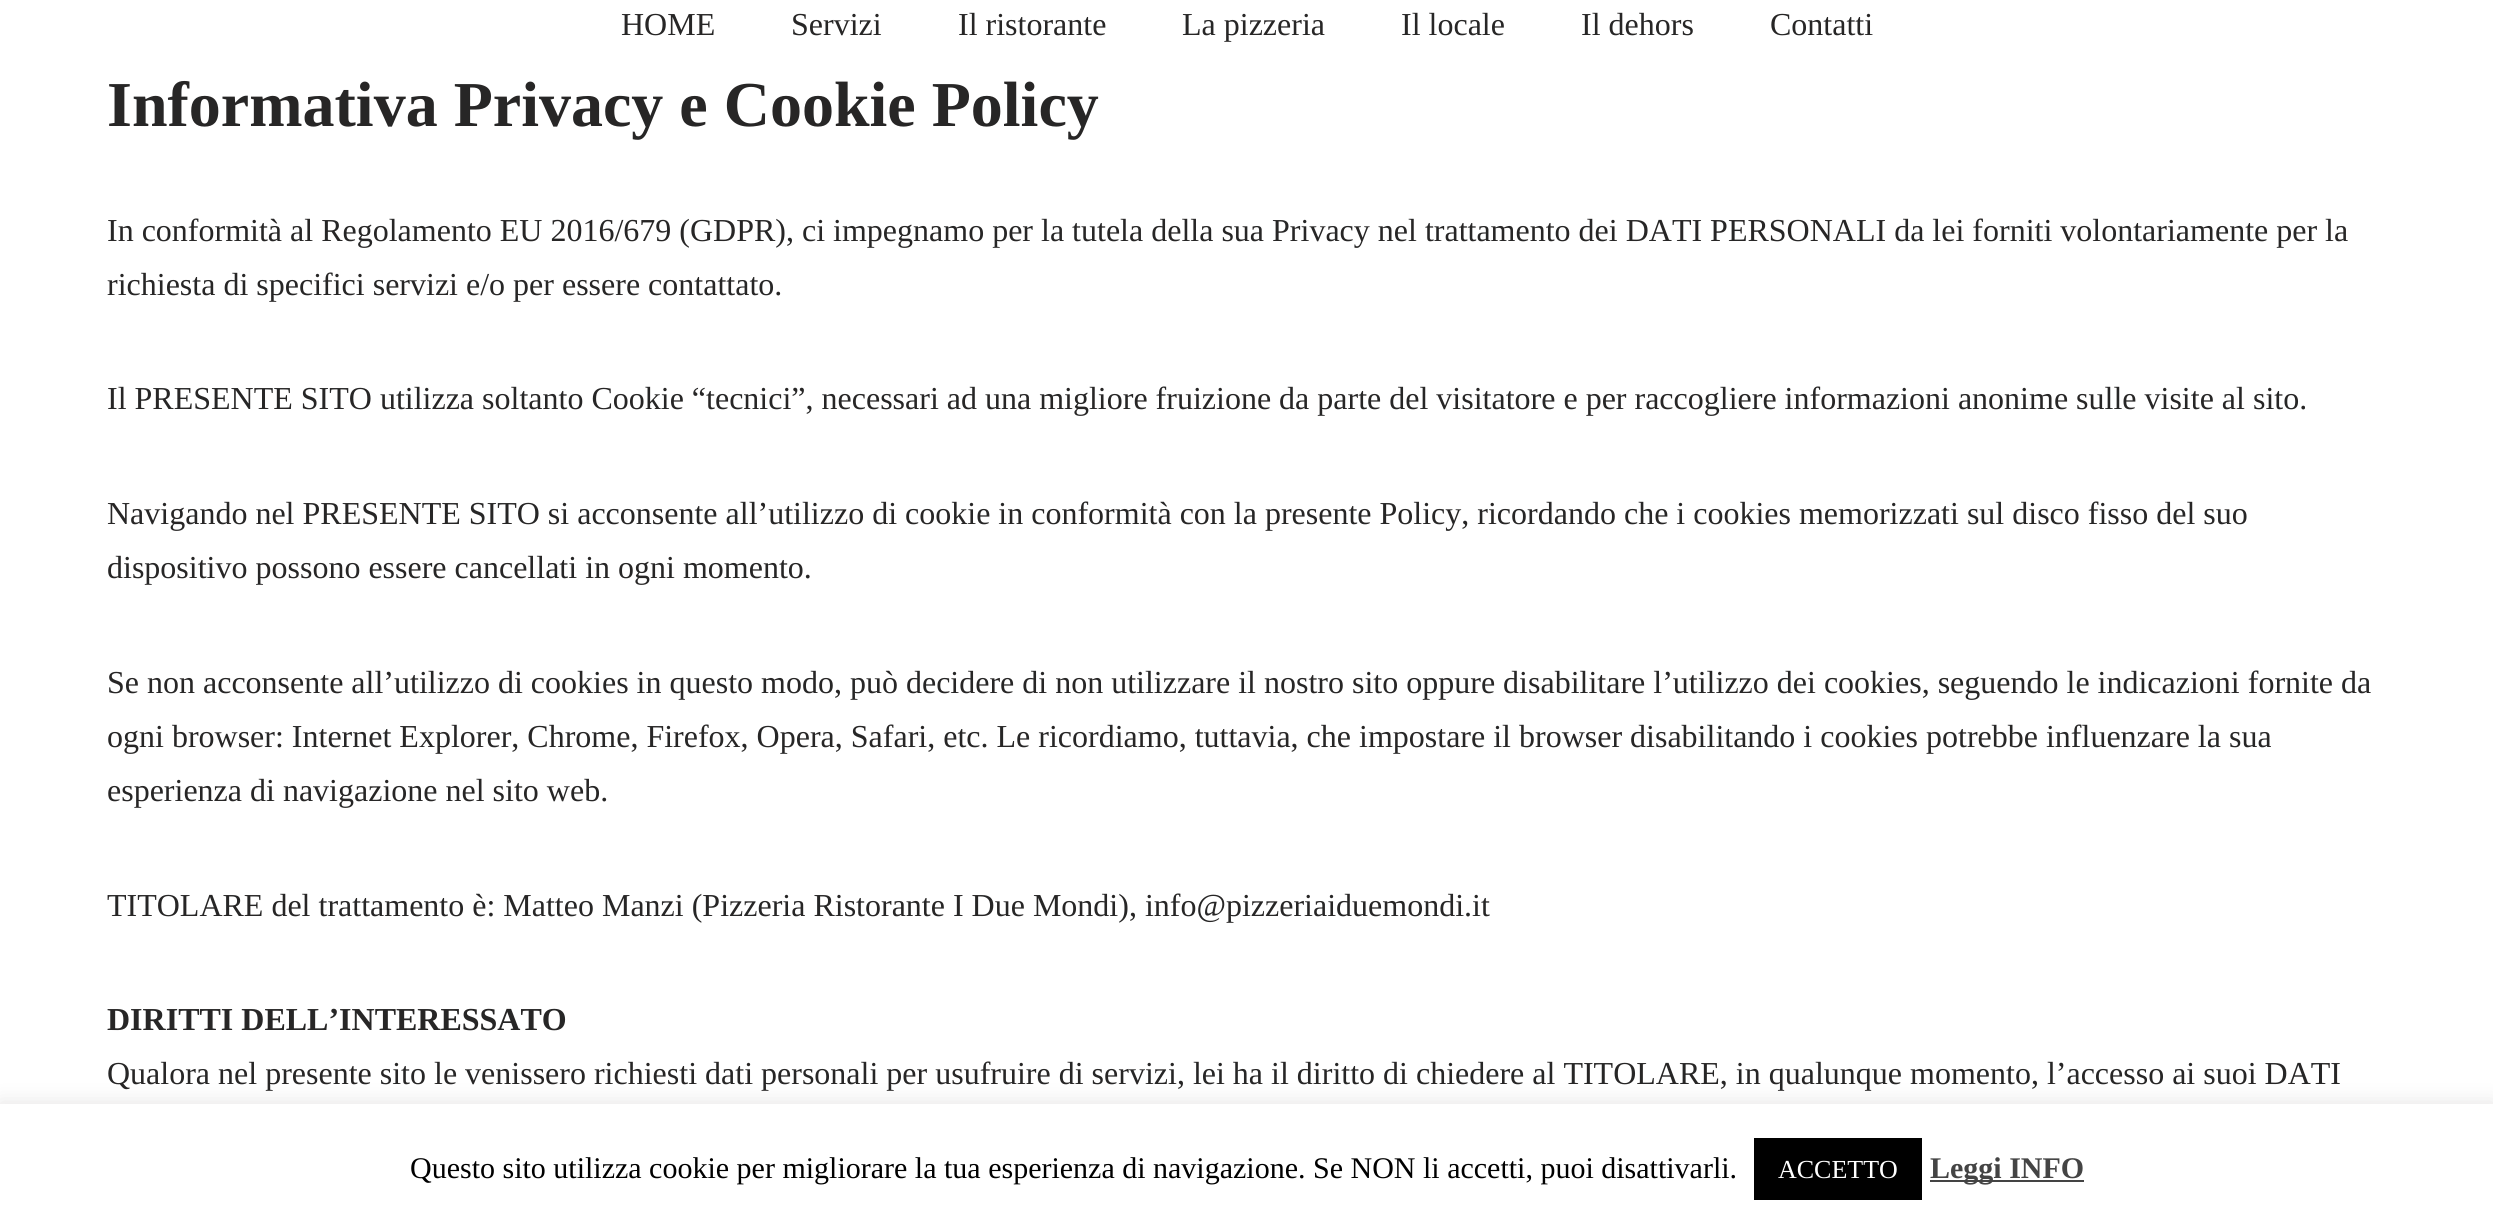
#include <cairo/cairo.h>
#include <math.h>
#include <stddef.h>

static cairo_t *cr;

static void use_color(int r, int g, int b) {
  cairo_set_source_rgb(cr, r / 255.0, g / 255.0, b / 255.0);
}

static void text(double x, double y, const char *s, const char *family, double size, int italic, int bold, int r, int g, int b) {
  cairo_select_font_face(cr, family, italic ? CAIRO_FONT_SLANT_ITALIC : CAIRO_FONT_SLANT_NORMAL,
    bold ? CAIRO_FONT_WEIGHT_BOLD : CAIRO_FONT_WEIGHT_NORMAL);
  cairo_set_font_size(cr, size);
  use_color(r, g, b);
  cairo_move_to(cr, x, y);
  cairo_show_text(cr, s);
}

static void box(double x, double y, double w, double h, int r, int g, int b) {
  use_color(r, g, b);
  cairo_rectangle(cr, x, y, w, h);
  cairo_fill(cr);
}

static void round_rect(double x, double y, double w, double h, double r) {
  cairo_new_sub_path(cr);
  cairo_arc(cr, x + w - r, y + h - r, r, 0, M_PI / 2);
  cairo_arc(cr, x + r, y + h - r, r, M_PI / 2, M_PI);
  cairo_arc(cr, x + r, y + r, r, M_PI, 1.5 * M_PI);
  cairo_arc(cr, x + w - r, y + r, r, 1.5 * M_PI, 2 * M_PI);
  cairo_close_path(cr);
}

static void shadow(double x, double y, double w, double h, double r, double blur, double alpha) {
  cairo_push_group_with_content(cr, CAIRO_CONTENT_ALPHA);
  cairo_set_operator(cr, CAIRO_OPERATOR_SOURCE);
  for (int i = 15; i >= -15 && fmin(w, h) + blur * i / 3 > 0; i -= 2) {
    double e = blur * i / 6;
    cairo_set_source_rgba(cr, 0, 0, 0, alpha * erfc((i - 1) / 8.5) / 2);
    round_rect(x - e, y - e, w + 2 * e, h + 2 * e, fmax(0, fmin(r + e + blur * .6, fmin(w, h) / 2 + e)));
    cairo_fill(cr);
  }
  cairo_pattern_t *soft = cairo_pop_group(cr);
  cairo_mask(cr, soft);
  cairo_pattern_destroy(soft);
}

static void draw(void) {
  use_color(255, 255, 255);
  cairo_paint(cr);
  use_color(172, 171, 171);
  shadow(0, 1102, 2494, 120, 0, 10, 0.3);
  box(0, 1104, 2493, 120, 255, 255, 255);
  box(1754, 1138, 168, 62, 0, 0, 0);
  box(1930, 1180, 154, 2, 68, 68, 68);
  text(621, 35, "HOME", "Liberation Serif", 32, 0, 0, 39, 38, 38);
  text(791, 35, "Servizi", "Liberation Serif", 32, 0, 0, 39, 38, 38);
  text(958, 35, "Il ristorante", "Liberation Serif", 32, 0, 0, 39, 38, 38);
  text(1182, 35, "La pizzeria", "Liberation Serif", 32, 0, 0, 39, 38, 38);
  text(1401, 35, "Il locale", "Liberation Serif", 32, 0, 0, 39, 38, 38);
  text(1581, 35, "Il dehors", "Liberation Serif", 32, 0, 0, 39, 38, 38);
  text(1770, 35, "Contatti", "Liberation Serif", 32, 0, 0, 39, 38, 38);
  text(107, 126, "Informativa Privacy e Cookie Policy", "Liberation Serif", 64, 0, 1, 39, 38, 38);
  text(107, 241, "In conformità al Regolamento EU 2016/679 (GDPR), ci impegnamo per la tutela della sua Privacy nel trattamento dei DATI PERSONALI da lei forniti volontariamente per la", "Liberation Serif", 32, 0, 0, 39, 38, 38);
  text(107, 295, "richiesta di specifici servizi e/o per essere contattato.", "Liberation Serif", 32, 0, 0, 39, 38, 38);
  text(107, 409, "Il PRESENTE SITO utilizza soltanto Cookie “tecnici”, necessari ad una migliore fruizione da parte del visitatore e per raccogliere informazioni anonime sulle visite al sito.", "Liberation Serif", 32, 0, 0, 39, 38, 38);
  text(107, 524, "Navigando nel PRESENTE SITO si acconsente all’utilizzo di cookie in conformità con la presente Policy, ricordando che i cookies memorizzati sul disco fisso del suo", "Liberation Serif", 32, 0, 0, 39, 38, 38);
  text(107, 578, "dispositivo possono essere cancellati in ogni momento.", "Liberation Serif", 32, 0, 0, 39, 38, 38);
  text(107, 693, "Se non acconsente all’utilizzo di cookies in questo modo, può decidere di non utilizzare il nostro sito oppure disabilitare l’utilizzo dei cookies, seguendo le indicazioni fornite da", "Liberation Serif", 32, 0, 0, 39, 38, 38);
  text(107, 747, "ogni browser: Internet Explorer, Chrome, Firefox, Opera, Safari, etc. Le ricordiamo, tuttavia, che impostare il browser disabilitando i cookies potrebbe influenzare la sua", "Liberation Serif", 32, 0, 0, 39, 38, 38);
  text(107, 801, "esperienza di navigazione nel sito web.", "Liberation Serif", 32, 0, 0, 39, 38, 38);
  text(107, 916, "TITOLARE del trattamento è: Matteo Manzi (Pizzeria Ristorante I Due Mondi), info@pizzeriaiduemondi.it", "Liberation Serif", 32, 0, 0, 39, 38, 38);
  text(107, 1030, "DIRITTI DELL’INTERESSATO", "Liberation Serif", 32, 0, 1, 39, 38, 38);
  text(107, 1084, "Qualora nel presente sito le venissero richiesti dati personali per usufruire di servizi, lei ha il diritto di chiedere al TITOLARE, in qualunque momento, l’accesso ai suoi DATI", "Liberation Serif", 32, 0, 0, 39, 38, 38);
  text(410, 1178, "Questo sito utilizza cookie per migliorare la tua esperienza di navigazione. Se NON li accetti, puoi disattivarli.", "Liberation Serif", 30, 0, 0, 0, 0, 0);
  text(1778, 1178, "ACCETTO", "Liberation Serif", 26, 0, 0, 255, 255, 255);
  text(1930, 1178, "Leggi INFO", "Liberation Serif", 30, 0, 1, 68, 68, 68);
}

int main(void) {
  cairo_surface_t *surface = cairo_image_surface_create(CAIRO_FORMAT_RGB24, 2493, 1224);
  cr = cairo_create(surface);
  cairo_font_options_t *options = cairo_font_options_create();
  cairo_font_options_set_hint_metrics(options, CAIRO_HINT_METRICS_OFF);
  cairo_font_options_set_hint_style(options, CAIRO_HINT_STYLE_NONE);
  cairo_set_font_options(cr, options);
  cairo_set_miter_limit(cr, 4);
  draw();
  cairo_surface_write_to_png(surface, "out.png");
  cairo_font_options_destroy(options);
  cairo_destroy(cr);
  cairo_surface_destroy(surface);
  return 0;
}
